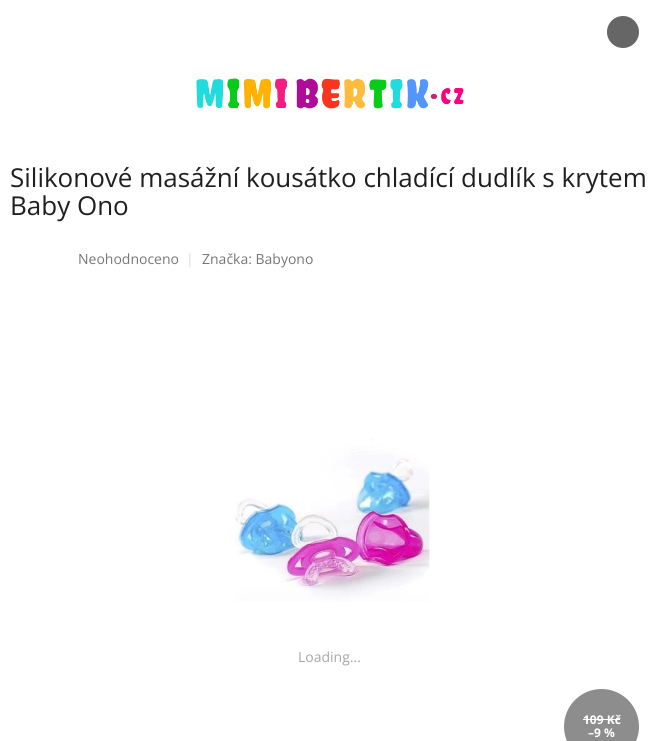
#include <cairo/cairo.h>
#include <math.h>
#include <stddef.h>

static cairo_t *cr;

static void use_color(int r, int g, int b) {
  cairo_set_source_rgb(cr, r / 255.0, g / 255.0, b / 255.0);
}

static void text(double x, double y, const char *s, const char *family, double size, int italic, int bold, int r, int g, int b) {
  cairo_select_font_face(cr, family, italic ? CAIRO_FONT_SLANT_ITALIC : CAIRO_FONT_SLANT_NORMAL,
    bold ? CAIRO_FONT_WEIGHT_BOLD : CAIRO_FONT_WEIGHT_NORMAL);
  cairo_set_font_size(cr, size);
  use_color(r, g, b);
  cairo_move_to(cr, x, y);
  cairo_show_text(cr, s);
}

static void box(double x, double y, double w, double h, int r, int g, int b) {
  use_color(r, g, b);
  cairo_rectangle(cr, x, y, w, h);
  cairo_fill(cr);
}

static void picture(const char *path, double x, double y, double w, double h) {
  cairo_surface_t *image = cairo_image_surface_create_from_png(path);
  cairo_save(cr);
  cairo_set_source_surface(cr, image, x, y);
  cairo_rectangle(cr, x, y, w, h);
  cairo_fill(cr);
  cairo_restore(cr);
  cairo_surface_destroy(image);
}

static void draw(void) {
  use_color(255, 255, 255);
  cairo_paint(cr);
  use_color(102, 102, 102);
  cairo_arc(cr, 623, 32, 16, 0, 2 * M_PI);
  cairo_fill(cr);
  picture("img_01.png", 196, 78, 268, 31);
  picture("img_02.png", 235, 438, 195, 164);
  use_color(141, 141, 141);
  cairo_arc(cr, 601.5, 726.5, 37.5, 0, 2 * M_PI);
  cairo_fill(cr);
  box(583, 719, 37, 1, 255, 255, 255);
  text(10, 187, "Silikonové masážní kousátko chladící dudlík s krytem", "Open Sans", 26, 0, 0, 31, 31, 31);
  text(10, 215, "Baby Ono", "Open Sans", 26, 0, 0, 31, 31, 31);
  text(78, 264, "Neohodnoceno", "Open Sans", 14, 0, 0, 118, 118, 118);
  text(186, 264, "|", "Open Sans", 14, 0, 0, 218, 218, 218);
  text(202, 264, "Značka: Babyono", "Open Sans", 14, 0, 0, 118, 118, 118);
  text(298, 662, "Loading...", "Open Sans", 14, 0, 0, 166, 166, 166);
  text(583, 724, "109 Kč", "Open Sans", 12, 0, 1, 255, 255, 255);
  text(588, 737, "–9 %", "Open Sans", 12, 0, 1, 255, 255, 255);
}

int main(void) {
  cairo_surface_t *surface = cairo_image_surface_create(CAIRO_FORMAT_RGB24, 659, 741);
  cr = cairo_create(surface);
  cairo_font_options_t *options = cairo_font_options_create();
  cairo_font_options_set_hint_metrics(options, CAIRO_HINT_METRICS_OFF);
  cairo_font_options_set_hint_style(options, CAIRO_HINT_STYLE_NONE);
  cairo_set_font_options(cr, options);
  cairo_set_miter_limit(cr, 4);
  draw();
  cairo_surface_write_to_png(surface, "out.png");
  cairo_font_options_destroy(options);
  cairo_destroy(cr);
  cairo_surface_destroy(surface);
  return 0;
}
